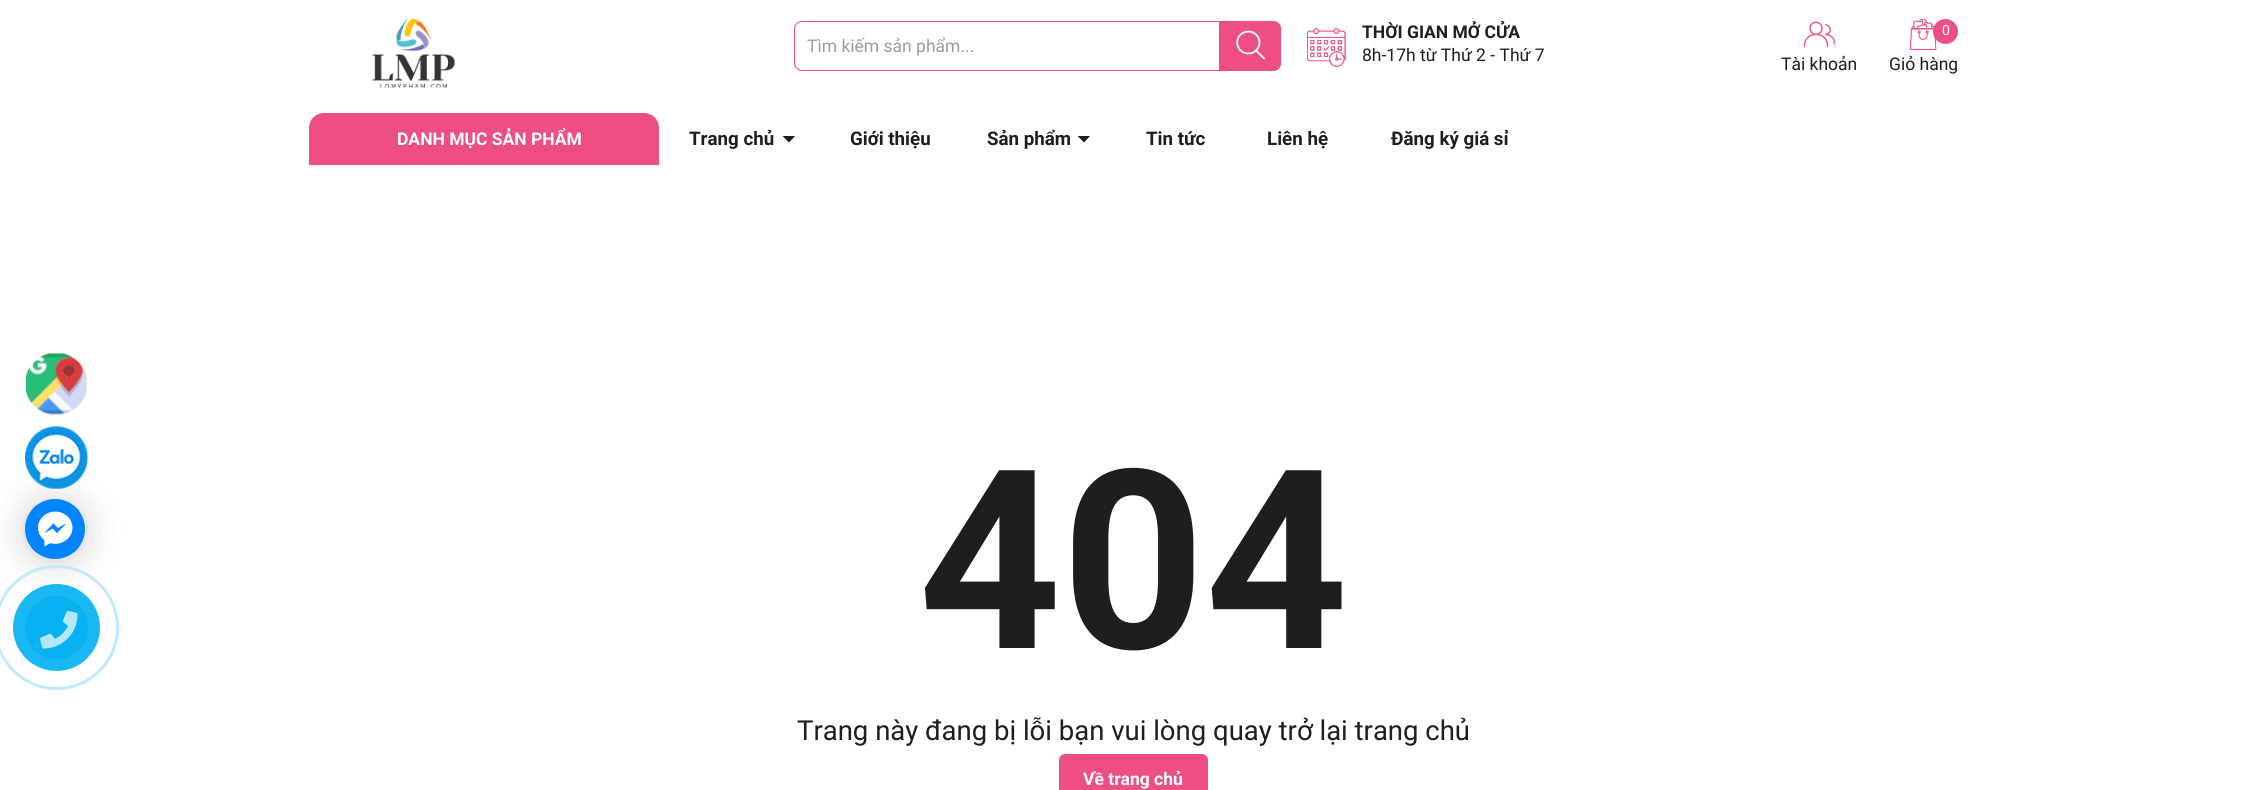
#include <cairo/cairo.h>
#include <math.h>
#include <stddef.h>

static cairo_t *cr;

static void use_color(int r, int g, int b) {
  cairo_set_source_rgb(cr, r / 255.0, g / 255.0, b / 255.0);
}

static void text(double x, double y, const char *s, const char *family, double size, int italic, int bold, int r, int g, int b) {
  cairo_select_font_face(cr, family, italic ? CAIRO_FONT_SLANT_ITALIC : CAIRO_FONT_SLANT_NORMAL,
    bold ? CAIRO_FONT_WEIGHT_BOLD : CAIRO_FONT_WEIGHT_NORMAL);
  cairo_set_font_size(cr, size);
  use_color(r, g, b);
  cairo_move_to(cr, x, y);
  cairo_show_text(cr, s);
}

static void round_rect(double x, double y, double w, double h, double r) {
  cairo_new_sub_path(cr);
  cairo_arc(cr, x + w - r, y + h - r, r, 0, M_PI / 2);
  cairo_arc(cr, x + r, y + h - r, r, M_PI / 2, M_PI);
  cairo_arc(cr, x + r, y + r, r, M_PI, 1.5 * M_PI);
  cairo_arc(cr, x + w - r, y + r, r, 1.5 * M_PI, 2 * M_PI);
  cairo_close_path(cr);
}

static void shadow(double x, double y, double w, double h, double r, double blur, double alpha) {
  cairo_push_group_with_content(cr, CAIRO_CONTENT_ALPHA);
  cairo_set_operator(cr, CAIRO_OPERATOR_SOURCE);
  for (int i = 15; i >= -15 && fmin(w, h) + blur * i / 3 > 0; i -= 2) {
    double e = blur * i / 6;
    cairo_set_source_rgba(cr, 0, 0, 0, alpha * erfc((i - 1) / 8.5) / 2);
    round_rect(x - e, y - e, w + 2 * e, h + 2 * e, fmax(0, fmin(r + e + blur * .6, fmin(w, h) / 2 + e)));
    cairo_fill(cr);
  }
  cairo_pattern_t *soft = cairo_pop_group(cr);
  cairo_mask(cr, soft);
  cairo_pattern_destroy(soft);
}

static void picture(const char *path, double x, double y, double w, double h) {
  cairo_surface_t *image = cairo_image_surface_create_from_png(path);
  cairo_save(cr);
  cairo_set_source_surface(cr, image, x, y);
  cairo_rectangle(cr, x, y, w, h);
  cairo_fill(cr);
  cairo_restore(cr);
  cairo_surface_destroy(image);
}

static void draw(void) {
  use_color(255, 255, 255);
  cairo_paint(cr);
  picture("img_01.png", 372, 18, 84, 70);
  round_rect(794.5, 21.5, 486, 49, 7.5);
  use_color(238, 79, 131);
  cairo_set_line_width(cr, 1);
  cairo_stroke(cr);
  cairo_new_path(cr);
  cairo_move_to(cr, 1219, 21);
  cairo_line_to(cr, 1273, 21);
  cairo_curve_to(cr, 1277.5, 21, 1281, 24.5, 1281, 29);
  cairo_line_to(cr, 1281, 63);
  cairo_curve_to(cr, 1281, 67.5, 1277.5, 71, 1273, 71);
  cairo_line_to(cr, 1219, 71);
  cairo_close_path(cr);
  cairo_fill(cr);
  picture("img_02.png", 1236, 30, 29, 30);
  picture("img_03.png", 1306, 28, 40, 39);
  picture("img_04.png", 1804, 21, 31, 27);
  picture("img_05.png", 1909, 19, 28, 31);
  cairo_arc(cr, 1945.5, 31.5, 12.5, 0, 2 * M_PI);
  cairo_fill(cr);
  cairo_new_path(cr);
  cairo_move_to(cr, 324, 113);
  cairo_line_to(cr, 644, 113);
  cairo_curve_to(cr, 652.5, 113, 659, 119.5, 659, 128);
  cairo_line_to(cr, 659, 165);
  cairo_line_to(cr, 309, 165);
  cairo_line_to(cr, 309, 128);
  cairo_curve_to(cr, 309, 119.5, 315.5, 113, 324, 113);
  cairo_close_path(cr);
  cairo_fill(cr);
  use_color(30, 30, 30);
  cairo_new_path(cr);
  cairo_move_to(cr, 782.5, 136);
  cairo_line_to(cr, 795, 136);
  cairo_line_to(cr, 789, 142.5);
  cairo_close_path(cr);
  cairo_fill(cr);
  cairo_new_path(cr);
  cairo_move_to(cr, 1077.5, 136);
  cairo_line_to(cr, 1090, 136);
  cairo_line_to(cr, 1084, 142.5);
  cairo_close_path(cr);
  cairo_fill(cr);
  picture("img_06.png", 26, 353, 61, 62);
  use_color(0, 0, 0);
  shadow(25, 501, 60, 60, 30, 20, 0.16);
  shadow(25, 500, 60, 60, 30, 4, 0.06);
  picture("img_07.png", 25, 426, 63, 63);
  use_color(0, 132, 255);
  cairo_arc(cr, 55, 529, 30, 0, 2 * M_PI);
  cairo_fill(cr);
  picture("img_08.png", 31, 505, 48, 48);
  use_color(238, 79, 131);
  round_rect(1059, 754, 149, 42, 6);
  cairo_fill(cr);
  cairo_arc(cr, 56.5, 627.5, 61, 0, 2 * M_PI);
  use_color(191, 235, 252);
  cairo_set_line_width(cr, 3);
  cairo_stroke(cr);
  cairo_set_source_rgba(cr, 0, 0.686, 0.949, 0.9);
  cairo_arc(cr, 56.5, 627.5, 43.5, 0, 2 * M_PI);
  cairo_fill(cr);
  use_color(8, 177, 242);
  cairo_arc(cr, 56.5, 627.5, 31.5, 0, 2 * M_PI);
  cairo_fill(cr);
  picture("img_09.png", 40, 611, 38, 38);
  text(807, 52, "Tìm kiếm sản phẩm...", "Roboto", 17.5, 0, 0, 153, 158, 161);
  text(1362, 38, "THỜI GIAN MỞ CỬA", "Roboto", 17.5, 0, 1, 30, 30, 30);
  text(1362, 61, "8h-17h từ Thứ 2 - Thứ 7", "Roboto", 17.5, 0, 0, 30, 30, 30);
  text(1781, 70, "Tài khoản", "Roboto", 17.5, 0, 0, 30, 30, 30);
  text(1942, 35, "0", "Roboto", 14, 0, 0, 255, 255, 255);
  text(1889, 70, "Giỏ hàng", "Roboto", 17.5, 0, 0, 30, 30, 30);
  text(397, 145, "DANH MỤC SẢN PHẨM", "Roboto", 17.5, 0, 1, 255, 255, 255);
  text(689, 145, "Trang chủ", "Roboto", 18.75, 0, 1, 30, 30, 30);
  text(850, 145, "Giới thiệu", "Roboto", 18.75, 0, 1, 30, 30, 30);
  text(987, 145, "Sản phẩm", "Roboto", 18.75, 0, 1, 30, 30, 30);
  text(1146, 145, "Tin tức", "Roboto", 18.75, 0, 1, 30, 30, 30);
  text(1267, 145, "Liên hệ", "Roboto", 18.75, 0, 1, 30, 30, 30);
  text(1391, 145, "Đăng ký giá sỉ", "Roboto", 18.75, 0, 1, 30, 30, 30);
  text(918, 648, "404", "Roboto", 250, 0, 1, 30, 30, 30);
  text(797, 740, "Trang này đang bị lỗi bạn vui lòng quay trở lại trang chủ", "Roboto", 27.5, 0, 0, 30, 30, 30);
  text(1083, 785, "Về trang chủ", "Roboto", 17.5, 0, 1, 255, 255, 255);
}

int main(void) {
  cairo_surface_t *surface = cairo_image_surface_create(CAIRO_FORMAT_RGB24, 2266, 790);
  cr = cairo_create(surface);
  cairo_font_options_t *options = cairo_font_options_create();
  cairo_font_options_set_hint_metrics(options, CAIRO_HINT_METRICS_OFF);
  cairo_font_options_set_hint_style(options, CAIRO_HINT_STYLE_NONE);
  cairo_set_font_options(cr, options);
  cairo_set_miter_limit(cr, 4);
  draw();
  cairo_surface_write_to_png(surface, "out.png");
  cairo_font_options_destroy(options);
  cairo_destroy(cr);
  cairo_surface_destroy(surface);
  return 0;
}
